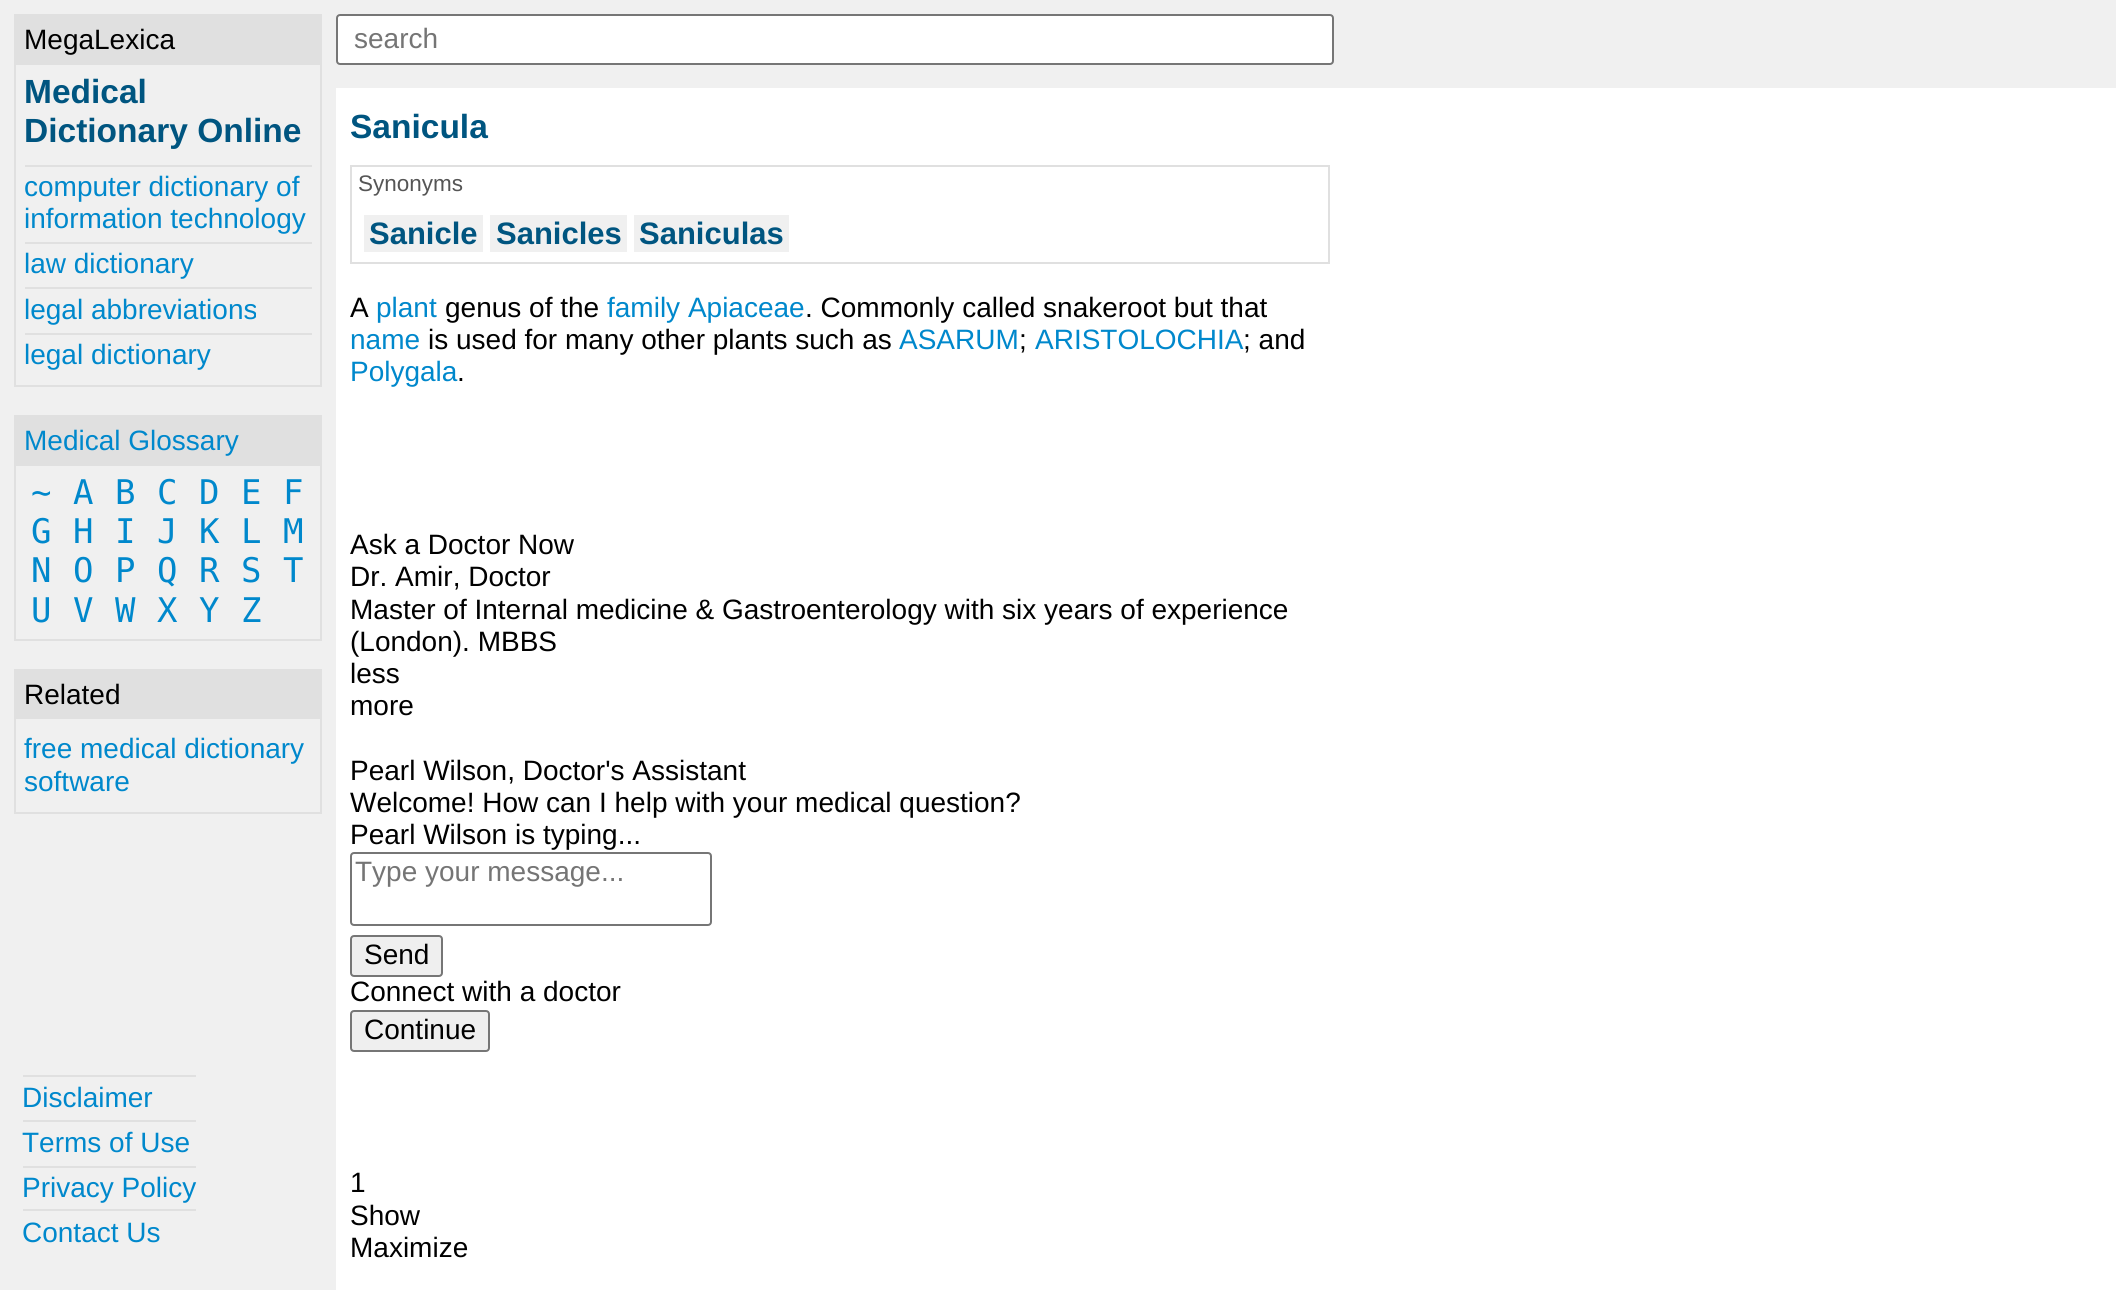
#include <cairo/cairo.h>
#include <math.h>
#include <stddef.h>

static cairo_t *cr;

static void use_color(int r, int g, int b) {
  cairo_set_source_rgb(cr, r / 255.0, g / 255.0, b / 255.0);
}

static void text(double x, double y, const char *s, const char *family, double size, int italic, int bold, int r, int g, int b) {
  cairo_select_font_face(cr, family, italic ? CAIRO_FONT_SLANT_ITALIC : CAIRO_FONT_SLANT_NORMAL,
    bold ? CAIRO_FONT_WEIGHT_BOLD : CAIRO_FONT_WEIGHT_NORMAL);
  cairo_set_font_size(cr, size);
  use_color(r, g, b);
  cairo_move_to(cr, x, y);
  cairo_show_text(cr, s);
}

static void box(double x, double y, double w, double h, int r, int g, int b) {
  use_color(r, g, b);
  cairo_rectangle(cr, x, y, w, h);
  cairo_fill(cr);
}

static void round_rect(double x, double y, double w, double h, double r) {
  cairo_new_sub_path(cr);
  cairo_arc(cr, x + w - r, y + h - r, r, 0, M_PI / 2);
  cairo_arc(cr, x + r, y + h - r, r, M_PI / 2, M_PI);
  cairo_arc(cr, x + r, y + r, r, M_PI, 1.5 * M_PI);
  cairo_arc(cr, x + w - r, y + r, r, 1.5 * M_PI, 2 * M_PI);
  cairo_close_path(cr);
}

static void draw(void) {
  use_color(255, 255, 255);
  cairo_paint(cr);
  box(0, 0, 336, 1290, 240, 240, 240);
  cairo_rectangle(cr, 15, 15, 306, 371);
  use_color(224, 224, 224);
  cairo_stroke(cr);
  box(16, 16, 304, 49, 224, 224, 224);
  box(25, 165, 287, 2, 224, 224, 224);
  box(25, 242, 287, 2, 224, 224, 224);
  box(25, 287, 287, 2, 224, 224, 224);
  box(25, 333, 287, 2, 224, 224, 224);
  cairo_rectangle(cr, 15, 416, 306, 224);
  cairo_stroke(cr);
  box(16, 417, 304, 49, 224, 224, 224);
  cairo_rectangle(cr, 15, 670, 306, 143);
  cairo_stroke(cr);
  box(16, 671, 304, 48, 224, 224, 224);
  box(23, 1075, 173, 2, 224, 224, 224);
  box(23, 1120, 173, 2, 224, 224, 224);
  box(23, 1166, 173, 2, 224, 224, 224);
  box(23, 1209, 173, 2, 224, 224, 224);
  box(336, 0, 1780, 88, 240, 240, 240);
  use_color(255, 255, 255);
  round_rect(337, 15, 996, 49, 3);
  cairo_fill_preserve(cr);
  use_color(118, 118, 118);
  cairo_stroke(cr);
  cairo_rectangle(cr, 351, 166, 978, 97);
  use_color(224, 224, 224);
  cairo_stroke(cr);
  box(364, 215, 119, 37, 240, 240, 240);
  box(490, 215, 137, 37, 240, 240, 240);
  box(634, 215, 155, 37, 240, 240, 240);
  round_rect(351, 853, 360, 72, 3);
  use_color(118, 118, 118);
  cairo_stroke(cr);
  use_color(239, 239, 239);
  round_rect(351, 936, 91, 40, 3);
  cairo_fill_preserve(cr);
  use_color(118, 118, 118);
  cairo_stroke(cr);
  use_color(239, 239, 239);
  round_rect(351, 1011, 138, 40, 3);
  cairo_fill_preserve(cr);
  use_color(118, 118, 118);
  cairo_stroke(cr);
  text(24, 49, "MegaLexica", "Liberation Sans", 28, 0, 0, 0, 0, 0);
  text(24, 103, "Medical", "Liberation Sans", 33.5, 0, 1, 0, 85, 128);
  text(24, 142, "Dictionary Online", "Liberation Sans", 33.5, 0, 1, 0, 85, 128);
  text(24, 196, "computer dictionary of", "Liberation Sans", 28, 0, 0, 0, 136, 204);
  text(24, 228, "information technology", "Liberation Sans", 28, 0, 0, 0, 136, 204);
  text(24, 273, "law dictionary", "Liberation Sans", 28, 0, 0, 0, 136, 204);
  text(24, 319, "legal abbreviations", "Liberation Sans", 28, 0, 0, 0, 136, 204);
  text(24, 364, "legal dictionary", "Liberation Sans", 28, 0, 0, 0, 136, 204);
  text(24, 450, "Medical Glossary", "Liberation Sans", 28, 0, 0, 0, 136, 204);
  text(31, 504, "~", "DejaVu Sans Mono", 34, 0, 0, 0, 136, 204);
  text(73, 504, "A", "DejaVu Sans Mono", 34, 0, 0, 0, 136, 204);
  text(115, 504, "B", "DejaVu Sans Mono", 34, 0, 0, 0, 136, 204);
  text(157, 504, "C", "DejaVu Sans Mono", 34, 0, 0, 0, 136, 204);
  text(199, 504, "D", "DejaVu Sans Mono", 34, 0, 0, 0, 136, 204);
  text(241, 504, "E", "DejaVu Sans Mono", 34, 0, 0, 0, 136, 204);
  text(283, 504, "F", "DejaVu Sans Mono", 34, 0, 0, 0, 136, 204);
  text(31, 543, "G", "DejaVu Sans Mono", 34, 0, 0, 0, 136, 204);
  text(73, 543, "H", "DejaVu Sans Mono", 34, 0, 0, 0, 136, 204);
  text(115, 543, "I", "DejaVu Sans Mono", 34, 0, 0, 0, 136, 204);
  text(157, 543, "J", "DejaVu Sans Mono", 34, 0, 0, 0, 136, 204);
  text(199, 543, "K", "DejaVu Sans Mono", 34, 0, 0, 0, 136, 204);
  text(241, 543, "L", "DejaVu Sans Mono", 34, 0, 0, 0, 136, 204);
  text(283, 543, "M", "DejaVu Sans Mono", 34, 0, 0, 0, 136, 204);
  text(31, 582, "N", "DejaVu Sans Mono", 34, 0, 0, 0, 136, 204);
  text(73, 582, "O", "DejaVu Sans Mono", 34, 0, 0, 0, 136, 204);
  text(115, 582, "P", "DejaVu Sans Mono", 34, 0, 0, 0, 136, 204);
  text(157, 582, "Q", "DejaVu Sans Mono", 34, 0, 0, 0, 136, 204);
  text(199, 582, "R", "DejaVu Sans Mono", 34, 0, 0, 0, 136, 204);
  text(241, 582, "S", "DejaVu Sans Mono", 34, 0, 0, 0, 136, 204);
  text(283, 582, "T", "DejaVu Sans Mono", 34, 0, 0, 0, 136, 204);
  text(31, 622, "U", "DejaVu Sans Mono", 34, 0, 0, 0, 136, 204);
  text(73, 622, "V", "DejaVu Sans Mono", 34, 0, 0, 0, 136, 204);
  text(115, 622, "W", "DejaVu Sans Mono", 34, 0, 0, 0, 136, 204);
  text(157, 622, "X", "DejaVu Sans Mono", 34, 0, 0, 0, 136, 204);
  text(199, 622, "Y", "DejaVu Sans Mono", 34, 0, 0, 0, 136, 204);
  text(241, 622, "Z", "DejaVu Sans Mono", 34, 0, 0, 0, 136, 204);
  text(24, 704, "Related", "Liberation Sans", 28, 0, 0, 0, 0, 0);
  text(24, 758, "free medical dictionary", "Liberation Sans", 28, 0, 0, 0, 136, 204);
  text(24, 791, "software", "Liberation Sans", 28, 0, 0, 0, 136, 204);
  text(22, 1107, "Disclaimer", "Liberation Sans", 28, 0, 0, 0, 136, 204);
  text(22, 1152, "Terms of Use", "Liberation Sans", 28, 0, 0, 0, 136, 204);
  text(22, 1197, "Privacy Policy", "Liberation Sans", 28, 0, 0, 0, 136, 204);
  text(22, 1242, "Contact Us", "Liberation Sans", 28, 0, 0, 0, 136, 204);
  text(354, 48, "search", "Liberation Sans", 28, 0, 0, 117, 117, 117);
  text(350, 138, "Sanicula", "Liberation Sans", 33.5, 0, 1, 0, 85, 128);
  text(358, 191, "Synonyms", "Liberation Sans", 22.5, 0, 0, 85, 85, 85);
  text(369, 244, "Sanicle", "Liberation Sans", 31, 0, 1, 0, 85, 128);
  text(496, 244, "Sanicles", "Liberation Sans", 31, 0, 1, 0, 85, 128);
  text(639, 244, "Saniculas", "Liberation Sans", 31, 0, 1, 0, 85, 128);
  text(350, 317, "A", "Liberation Sans", 28, 0, 0, 0, 0, 0);
  text(376, 317, "plant", "Liberation Sans", 28, 0, 0, 0, 136, 204);
  text(445, 317, "genus of the", "Liberation Sans", 28, 0, 0, 0, 0, 0);
  text(607, 317, "family Apiaceae", "Liberation Sans", 28, 0, 0, 0, 136, 204);
  text(805, 317, ". Commonly called snakeroot but that", "Liberation Sans", 28, 0, 0, 0, 0, 0);
  text(350, 349, "name", "Liberation Sans", 28, 0, 0, 0, 136, 204);
  text(428, 349, "is used for many other plants such as", "Liberation Sans", 28, 0, 0, 0, 0, 0);
  text(899, 349, "ASARUM", "Liberation Sans", 28, 0, 0, 0, 136, 204);
  text(1019, 349, ";", "Liberation Sans", 28, 0, 0, 0, 0, 0);
  text(1035, 349, "ARISTOLOCHIA", "Liberation Sans", 28, 0, 0, 0, 136, 204);
  text(1243, 349, "; and", "Liberation Sans", 28, 0, 0, 0, 0, 0);
  text(350, 381, "Polygala", "Liberation Sans", 28, 0, 0, 0, 136, 204);
  text(457, 381, ".", "Liberation Sans", 28, 0, 0, 0, 0, 0);
  text(350, 554, "Ask a Doctor Now", "Liberation Sans", 28, 0, 0, 0, 0, 0);
  text(350, 586, "Dr. Amir, Doctor", "Liberation Sans", 28, 0, 0, 0, 0, 0);
  text(350, 619, "Master of Internal medicine & Gastroenterology with six years of experience", "Liberation Sans", 28, 0, 0, 0, 0, 0);
  text(350, 651, "(London). MBBS", "Liberation Sans", 28, 0, 0, 0, 0, 0);
  text(350, 683, "less", "Liberation Sans", 28, 0, 0, 0, 0, 0);
  text(350, 715, "more", "Liberation Sans", 28, 0, 0, 0, 0, 0);
  text(350, 780, "Pearl Wilson, Doctor's Assistant", "Liberation Sans", 28, 0, 0, 0, 0, 0);
  text(350, 812, "Welcome! How can I help with your medical question?", "Liberation Sans", 28, 0, 0, 0, 0, 0);
  text(350, 844, "Pearl Wilson is typing...", "Liberation Sans", 28, 0, 0, 0, 0, 0);
  text(355, 881, "Type your message...", "Liberation Sans", 28, 0, 0, 117, 117, 117);
  text(364, 964, "Send", "Liberation Sans", 28, 0, 0, 0, 0, 0);
  text(350, 1001, "Connect with a doctor", "Liberation Sans", 28, 0, 0, 0, 0, 0);
  text(364, 1039, "Continue", "Liberation Sans", 28, 0, 0, 0, 0, 0);
  text(350, 1192, "1", "Liberation Sans", 28, 0, 0, 0, 0, 0);
  text(350, 1225, "Show", "Liberation Sans", 28, 0, 0, 0, 0, 0);
  text(350, 1257, "Maximize", "Liberation Sans", 28, 0, 0, 0, 0, 0);
}

int main(void) {
  cairo_surface_t *surface = cairo_image_surface_create(CAIRO_FORMAT_RGB24, 2116, 1290);
  cr = cairo_create(surface);
  cairo_font_options_t *options = cairo_font_options_create();
  cairo_font_options_set_hint_metrics(options, CAIRO_HINT_METRICS_OFF);
  cairo_font_options_set_hint_style(options, CAIRO_HINT_STYLE_NONE);
  cairo_set_font_options(cr, options);
  cairo_set_miter_limit(cr, 4);
  draw();
  cairo_surface_write_to_png(surface, "out.png");
  cairo_font_options_destroy(options);
  cairo_destroy(cr);
  cairo_surface_destroy(surface);
  return 0;
}
